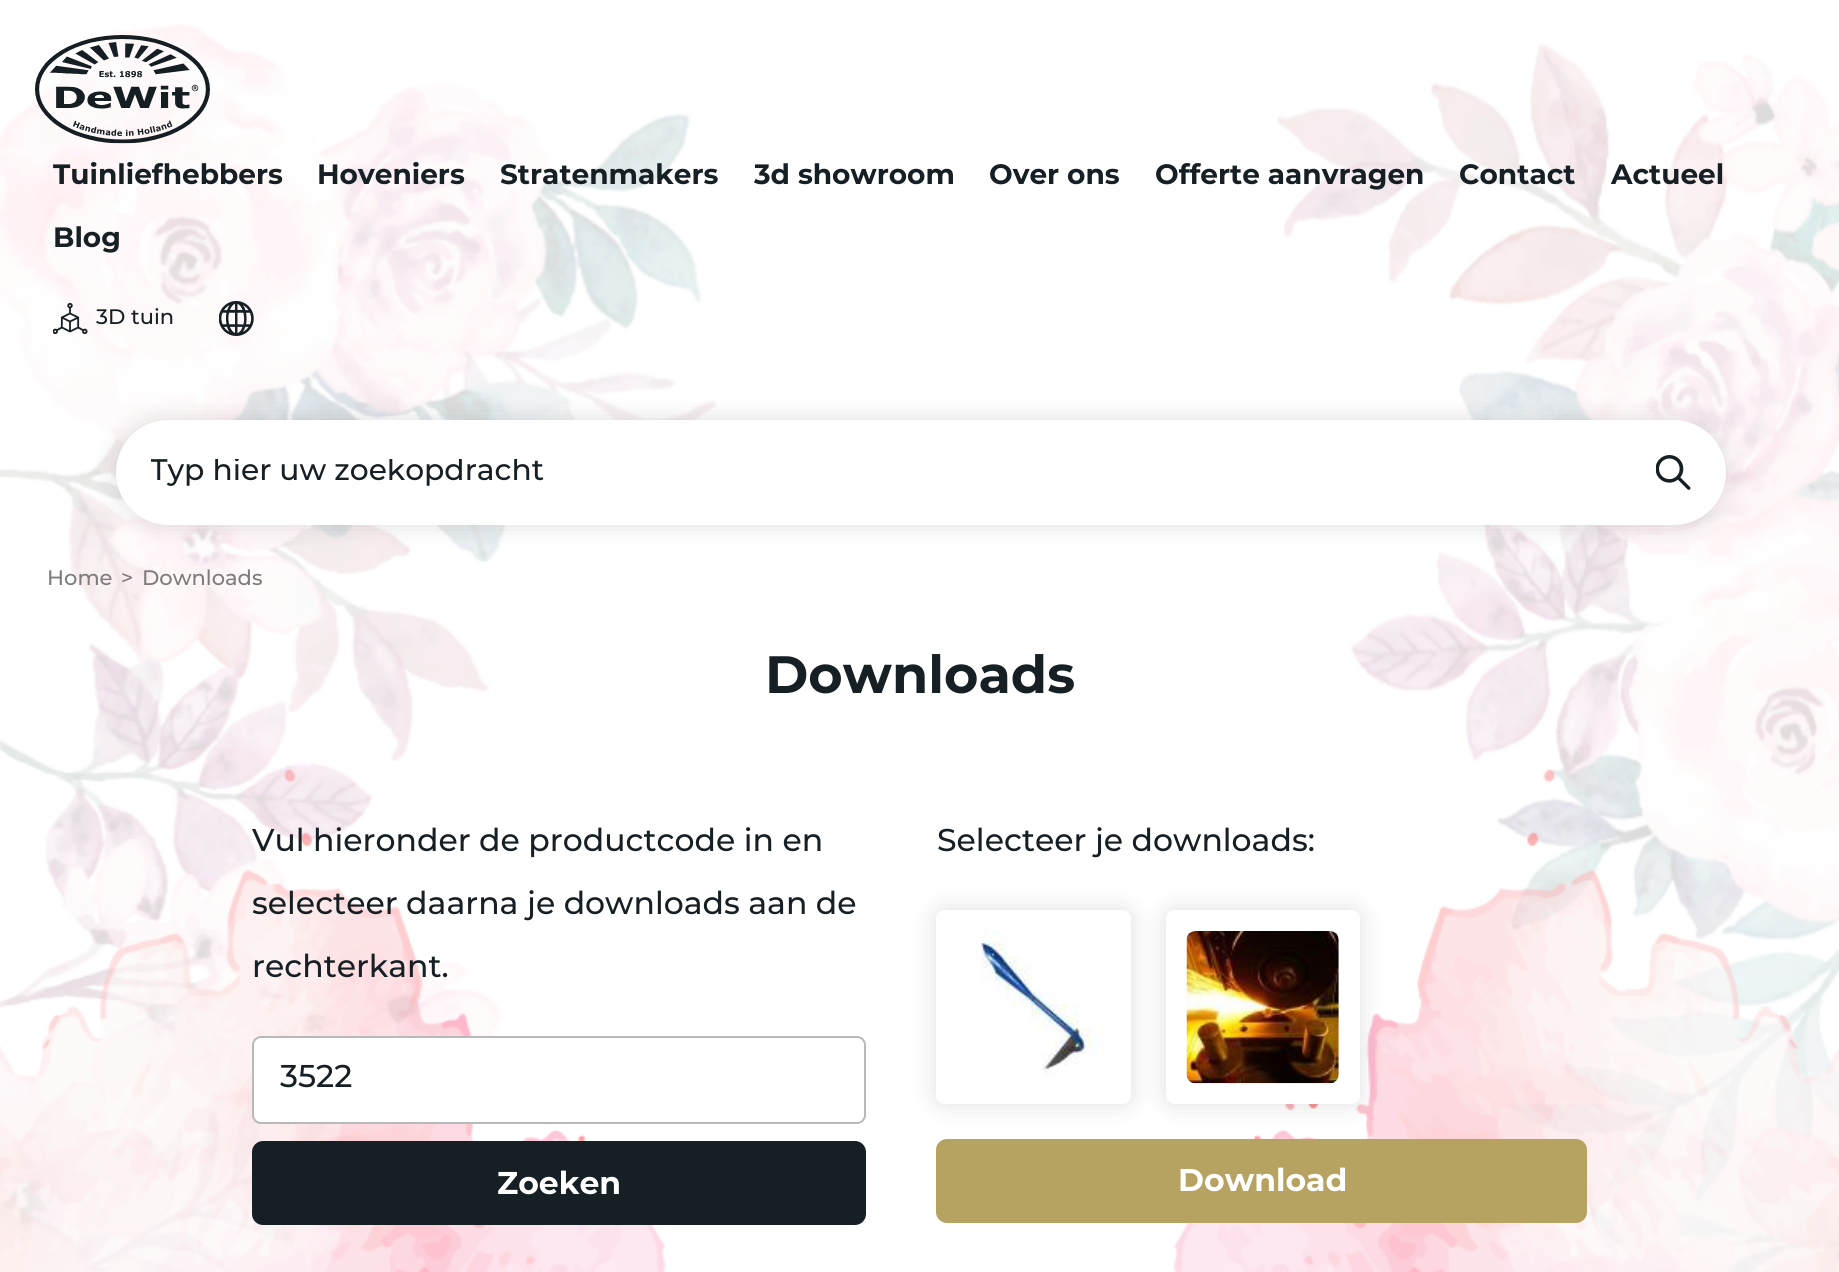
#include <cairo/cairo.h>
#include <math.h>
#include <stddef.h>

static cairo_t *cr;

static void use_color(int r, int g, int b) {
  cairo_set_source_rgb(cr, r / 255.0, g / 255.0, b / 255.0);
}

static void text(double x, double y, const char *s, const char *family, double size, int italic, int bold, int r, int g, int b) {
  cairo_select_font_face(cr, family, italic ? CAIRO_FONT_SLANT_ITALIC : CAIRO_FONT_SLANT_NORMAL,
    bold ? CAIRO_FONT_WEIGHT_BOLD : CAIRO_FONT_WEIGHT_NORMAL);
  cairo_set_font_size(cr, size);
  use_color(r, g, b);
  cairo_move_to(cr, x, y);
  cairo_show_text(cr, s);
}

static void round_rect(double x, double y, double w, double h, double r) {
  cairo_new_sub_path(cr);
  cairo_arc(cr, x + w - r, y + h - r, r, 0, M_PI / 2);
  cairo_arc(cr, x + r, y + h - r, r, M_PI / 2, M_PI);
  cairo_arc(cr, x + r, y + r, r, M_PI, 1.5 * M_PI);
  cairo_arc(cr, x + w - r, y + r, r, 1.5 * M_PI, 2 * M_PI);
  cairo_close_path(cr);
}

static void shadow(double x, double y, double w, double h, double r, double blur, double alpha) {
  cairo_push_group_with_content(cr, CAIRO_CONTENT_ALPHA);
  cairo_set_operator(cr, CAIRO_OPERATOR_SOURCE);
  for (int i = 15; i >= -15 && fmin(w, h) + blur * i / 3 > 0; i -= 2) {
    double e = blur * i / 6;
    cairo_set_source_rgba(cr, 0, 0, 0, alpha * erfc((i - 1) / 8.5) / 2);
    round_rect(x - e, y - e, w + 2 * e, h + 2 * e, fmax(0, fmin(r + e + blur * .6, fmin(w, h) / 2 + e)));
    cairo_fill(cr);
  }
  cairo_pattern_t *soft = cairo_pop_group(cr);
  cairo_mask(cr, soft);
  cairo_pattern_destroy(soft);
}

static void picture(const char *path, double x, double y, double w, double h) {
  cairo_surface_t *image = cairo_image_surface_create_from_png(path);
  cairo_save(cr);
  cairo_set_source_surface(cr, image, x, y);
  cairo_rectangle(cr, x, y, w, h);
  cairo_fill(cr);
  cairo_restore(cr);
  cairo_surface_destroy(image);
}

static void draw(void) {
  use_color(255, 255, 255);
  cairo_paint(cr);
  picture("img_01.png", 0, 24, 717, 1248);
  picture("img_02.png", 1277, 44, 562, 1228);
  picture("img_03.png", 35, 35, 175, 109);
  picture("img_04.png", 53, 302, 35, 33);
  picture("img_05.png", 219, 301, 35, 35);
  use_color(0, 0, 0);
  shadow(116, 420, 1610, 105, 52.5, 12, 0.13);
  use_color(255, 255, 255);
  round_rect(116, 420, 1610, 105, 52.5);
  cairo_fill(cr);
  picture("img_06.png", 1656, 455, 35, 35);
  picture("img_09.png", 0, 770, 666, 502);
  round_rect(253, 1037, 612, 86, 8);
  cairo_fill_preserve(cr);
  use_color(184, 185, 186);
  cairo_stroke(cr);
  use_color(22, 31, 36);
  round_rect(252, 1141, 614, 84, 11);
  cairo_fill(cr);
  use_color(0, 0, 0);
  shadow(936, 910, 195, 194, 9, 12, 0.13);
  use_color(255, 255, 255);
  round_rect(936, 910, 195, 194, 9);
  cairo_fill(cr);
  picture("img_07.png", 981, 931, 123, 146);
  picture("img_10.png", 1173, 770, 666, 502);
  use_color(0, 0, 0);
  shadow(1166, 910, 194, 194, 9, 12, 0.13);
  use_color(255, 255, 255);
  round_rect(1166, 910, 194, 194, 9);
  cairo_fill(cr);
  picture("img_08.png", 1186, 931, 153, 153);
  use_color(183, 163, 97);
  round_rect(936, 1139, 651, 84, 11);
  cairo_fill(cr);
  text(53, 184, "Tuinliefhebbers", "Montserrat", 28, 0, 1, 22, 31, 36);
  text(317, 184, "Hoveniers", "Montserrat", 28, 0, 1, 22, 31, 36);
  text(500, 184, "Stratenmakers", "Montserrat", 28, 0, 1, 22, 31, 36);
  text(754, 184, "3d showroom", "Montserrat", 28, 0, 1, 22, 31, 36);
  text(989, 184, "Over ons", "Montserrat", 28, 0, 1, 22, 31, 36);
  text(1155, 184, "Offerte aanvragen", "Montserrat", 28, 0, 1, 22, 31, 36);
  text(1459, 184, "Contact", "Montserrat", 28, 0, 1, 22, 31, 36);
  text(1611, 184, "Actueel", "Montserrat", 28, 0, 1, 22, 31, 36);
  text(53, 247, "Blog", "Montserrat", 28, 0, 1, 22, 31, 36);
  text(96, 324, "3D tuin", "Montserrat Medium", 21, 0, 0, 22, 31, 36);
  cairo_save(cr);
  cairo_rectangle(cr, 151, 459, 1478, 29);
  cairo_clip(cr);
  text(150, 480, "Typ hier uw zoekopdracht", "Montserrat Medium", 29.75, 0, 0, 22, 31, 36);
  cairo_restore(cr);
  text(47, 585, "Home", "Montserrat Medium", 21, 0, 0, 126, 123, 124);
  text(121, 585, ">", "Montserrat Medium", 21, 0, 0, 126, 123, 124);
  text(142, 585, "Downloads", "Montserrat Medium", 21, 0, 0, 126, 123, 124);
  text(765, 693, "Downloads", "Montserrat", 52.5, 0, 1, 22, 31, 36);
  text(252, 851, "Vul hieronder de productcode in en", "Montserrat Medium", 31.5, 0, 0, 22, 31, 36);
  text(252, 914, "selecteer daarna je downloads aan de", "Montserrat Medium", 31.5, 0, 0, 22, 31, 36);
  text(252, 977, "rechterkant.", "Montserrat Medium", 31.5, 0, 0, 22, 31, 36);
  text(280, 1087, "3522", "Montserrat Medium", 31.5, 0, 0, 22, 31, 36);
  text(497, 1194, "Zoeken", "Montserrat", 31.5, 0, 1, 255, 255, 255);
  text(937, 851, "Selecteer je downloads:", "Montserrat Medium", 31.5, 0, 0, 22, 31, 36);
  text(1178, 1191, "Download", "Montserrat", 31.5, 0, 1, 255, 255, 255);
}

int main(void) {
  cairo_surface_t *surface = cairo_image_surface_create(CAIRO_FORMAT_RGB24, 1839, 1272);
  cr = cairo_create(surface);
  cairo_font_options_t *options = cairo_font_options_create();
  cairo_font_options_set_hint_metrics(options, CAIRO_HINT_METRICS_OFF);
  cairo_font_options_set_hint_style(options, CAIRO_HINT_STYLE_NONE);
  cairo_set_font_options(cr, options);
  cairo_set_miter_limit(cr, 4);
  draw();
  cairo_surface_write_to_png(surface, "out.png");
  cairo_font_options_destroy(options);
  cairo_destroy(cr);
  cairo_surface_destroy(surface);
  return 0;
}
